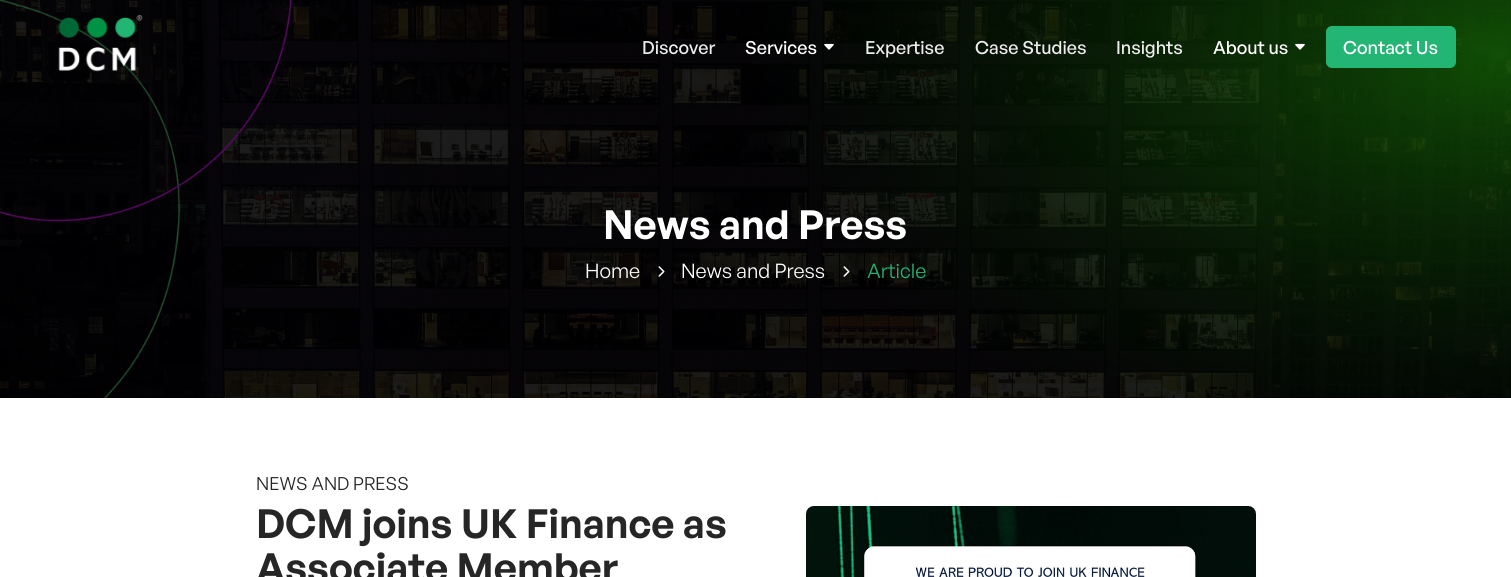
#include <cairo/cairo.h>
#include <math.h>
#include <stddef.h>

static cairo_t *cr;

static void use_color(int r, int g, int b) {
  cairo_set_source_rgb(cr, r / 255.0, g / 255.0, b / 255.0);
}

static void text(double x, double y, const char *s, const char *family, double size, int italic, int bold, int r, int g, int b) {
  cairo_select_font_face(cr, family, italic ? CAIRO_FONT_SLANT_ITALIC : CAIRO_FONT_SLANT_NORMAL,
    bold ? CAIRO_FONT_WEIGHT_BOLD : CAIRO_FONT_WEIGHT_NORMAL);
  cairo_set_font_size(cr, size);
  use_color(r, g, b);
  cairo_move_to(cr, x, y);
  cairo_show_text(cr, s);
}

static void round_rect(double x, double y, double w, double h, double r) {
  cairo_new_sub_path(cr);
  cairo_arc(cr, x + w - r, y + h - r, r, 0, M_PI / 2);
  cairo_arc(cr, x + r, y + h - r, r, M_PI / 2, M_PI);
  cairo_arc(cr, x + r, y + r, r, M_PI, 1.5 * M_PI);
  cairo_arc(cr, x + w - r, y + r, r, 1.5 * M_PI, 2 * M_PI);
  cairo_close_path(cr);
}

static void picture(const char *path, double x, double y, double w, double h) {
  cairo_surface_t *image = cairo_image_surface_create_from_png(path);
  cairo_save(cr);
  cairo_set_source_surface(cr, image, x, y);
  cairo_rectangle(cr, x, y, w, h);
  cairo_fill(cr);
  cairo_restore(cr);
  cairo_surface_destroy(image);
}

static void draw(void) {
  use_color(255, 255, 255);
  cairo_paint(cr);
  picture("img_04.png", 0, 0, 1511, 398);
  picture("img_01.png", 58, 15, 85, 57);
  picture("img_02.png", 824, 43, 10, 7);
  picture("img_03.png", 1295, 43, 10, 7);
  use_color(34, 181, 115);
  round_rect(1327, 27, 128, 40, 5);
  cairo_fill_preserve(cr);
  cairo_stroke(cr);
  picture("img_05.png", 658, 266, 7, 11);
  picture("img_06.png", 843, 266, 7, 11);
  picture("img_07.png", 806, 506, 450, 71);
  text(642, 54, "Discover", "General Sans Medium", 18, 0, 0, 237, 237, 237);
  text(745, 54, "Services", "General Sans Medium", 18, 0, 0, 255, 255, 255);
  text(865, 54, "Expertise", "General Sans Medium", 18, 0, 0, 237, 237, 237);
  text(975, 54, "Case Studies", "General Sans Medium", 18, 0, 0, 237, 237, 237);
  text(1116, 54, "Insights", "General Sans Medium", 18, 0, 0, 237, 237, 237);
  text(1213, 54, "About us", "General Sans Medium", 18, 0, 0, 255, 255, 255);
  text(1343, 54, "Contact Us", "General Sans Medium", 18, 0, 0, 255, 255, 255);
  text(603, 239, "News and Press", "General Sans SemiBold", 40, 0, 0, 255, 255, 255);
  text(585, 278, "Home", "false", 20, 0, 0, 255, 255, 255);
  text(681, 278, "News and Press", "false", 20, 0, 0, 255, 255, 255);
  text(867, 278, "Article", "false", 20, 0, 0, 34, 181, 115);
  text(256, 490, "NEWS AND PRESS", "false", 18, 0, 0, 38, 38, 38);
  text(256, 538, "DCM joins UK Finance as", "General Sans SemiBold", 40, 0, 0, 38, 38, 38);
  text(256, 582, "Associate Member", "General Sans SemiBold", 40, 0, 0, 38, 38, 38);
}

int main(void) {
  cairo_surface_t *surface = cairo_image_surface_create(CAIRO_FORMAT_RGB24, 1511, 577);
  cr = cairo_create(surface);
  cairo_font_options_t *options = cairo_font_options_create();
  cairo_font_options_set_hint_metrics(options, CAIRO_HINT_METRICS_OFF);
  cairo_font_options_set_hint_style(options, CAIRO_HINT_STYLE_NONE);
  cairo_set_font_options(cr, options);
  cairo_set_miter_limit(cr, 4);
  draw();
  cairo_surface_write_to_png(surface, "out.png");
  cairo_font_options_destroy(options);
  cairo_destroy(cr);
  cairo_surface_destroy(surface);
  return 0;
}
